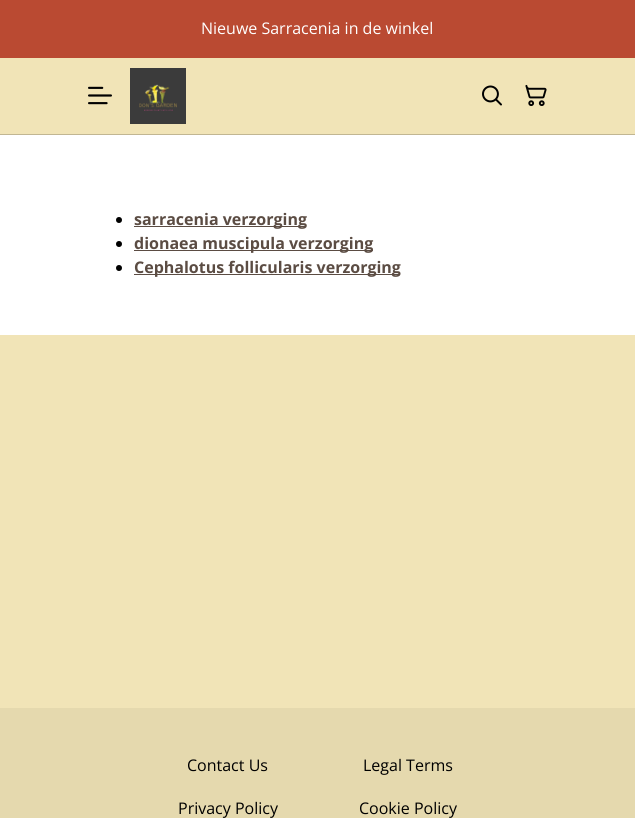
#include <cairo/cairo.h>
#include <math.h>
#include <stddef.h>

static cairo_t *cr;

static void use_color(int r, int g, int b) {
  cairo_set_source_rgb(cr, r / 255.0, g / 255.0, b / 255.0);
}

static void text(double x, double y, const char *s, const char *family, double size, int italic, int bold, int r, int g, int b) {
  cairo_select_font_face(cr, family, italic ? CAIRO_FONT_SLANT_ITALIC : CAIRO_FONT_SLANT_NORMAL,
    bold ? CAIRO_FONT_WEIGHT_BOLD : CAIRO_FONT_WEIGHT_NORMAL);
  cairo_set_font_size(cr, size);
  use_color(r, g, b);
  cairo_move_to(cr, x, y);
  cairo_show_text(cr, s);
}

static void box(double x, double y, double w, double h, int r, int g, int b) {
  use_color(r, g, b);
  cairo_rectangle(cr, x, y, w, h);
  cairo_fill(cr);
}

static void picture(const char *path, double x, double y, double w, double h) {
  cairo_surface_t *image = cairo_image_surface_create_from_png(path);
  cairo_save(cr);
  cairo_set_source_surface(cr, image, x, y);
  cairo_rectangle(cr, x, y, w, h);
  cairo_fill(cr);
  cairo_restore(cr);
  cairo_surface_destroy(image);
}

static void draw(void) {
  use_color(241, 228, 183);
  cairo_paint(cr);
  box(0, 0, 635, 58, 186, 74, 50);
  box(0, 134, 635, 1, 193, 182, 146);
  picture("img_01.png", 88, 86, 24, 19);
  picture("img_02.png", 130, 68, 56, 56);
  picture("img_03.png", 482, 85, 20, 21);
  picture("img_04.png", 525, 84, 22, 22);
  box(0, 135, 635, 200, 255, 255, 255);
  use_color(0, 0, 0);
  cairo_arc(cr, 119, 220, 3, 0, 2 * M_PI);
  cairo_fill(cr);
  box(134, 226, 172, 1, 91, 76, 67);
  use_color(0, 0, 0);
  cairo_arc(cr, 119, 244, 3, 0, 2 * M_PI);
  cairo_fill(cr);
  box(134, 250, 239, 1, 91, 76, 67);
  use_color(0, 0, 0);
  cairo_arc(cr, 119, 268, 3, 0, 2 * M_PI);
  cairo_fill(cr);
  box(134, 274, 266, 1, 91, 76, 67);
  box(0, 708, 635, 110, 229, 217, 174);
  text(201, 34, "Nieuwe Sarracenia in de winkel", "Open Sans", 16, 0, 0, 255, 255, 255);
  text(134, 225, "sarracenia verzorging", "Open Sans", 16, 0, 1, 91, 76, 67);
  text(134, 249, "dionaea muscipula verzorging", "Open Sans", 16, 0, 1, 91, 76, 67);
  text(134, 273, "Cephalotus follicularis verzorging", "Open Sans", 16, 0, 1, 91, 76, 67);
  text(187, 771, "Contact Us", "Open Sans", 16, 0, 0, 0, 0, 0);
  text(363, 771, "Legal Terms", "Open Sans", 16, 0, 0, 0, 0, 0);
  text(178, 814, "Privacy Policy", "Open Sans", 16, 0, 0, 0, 0, 0);
  text(359, 814, "Cookie Policy", "Open Sans", 16, 0, 0, 0, 0, 0);
}

int main(void) {
  cairo_surface_t *surface = cairo_image_surface_create(CAIRO_FORMAT_RGB24, 635, 818);
  cr = cairo_create(surface);
  cairo_font_options_t *options = cairo_font_options_create();
  cairo_font_options_set_hint_metrics(options, CAIRO_HINT_METRICS_OFF);
  cairo_font_options_set_hint_style(options, CAIRO_HINT_STYLE_NONE);
  cairo_set_font_options(cr, options);
  cairo_set_miter_limit(cr, 4);
  draw();
  cairo_surface_write_to_png(surface, "out.png");
  cairo_font_options_destroy(options);
  cairo_destroy(cr);
  cairo_surface_destroy(surface);
  return 0;
}
